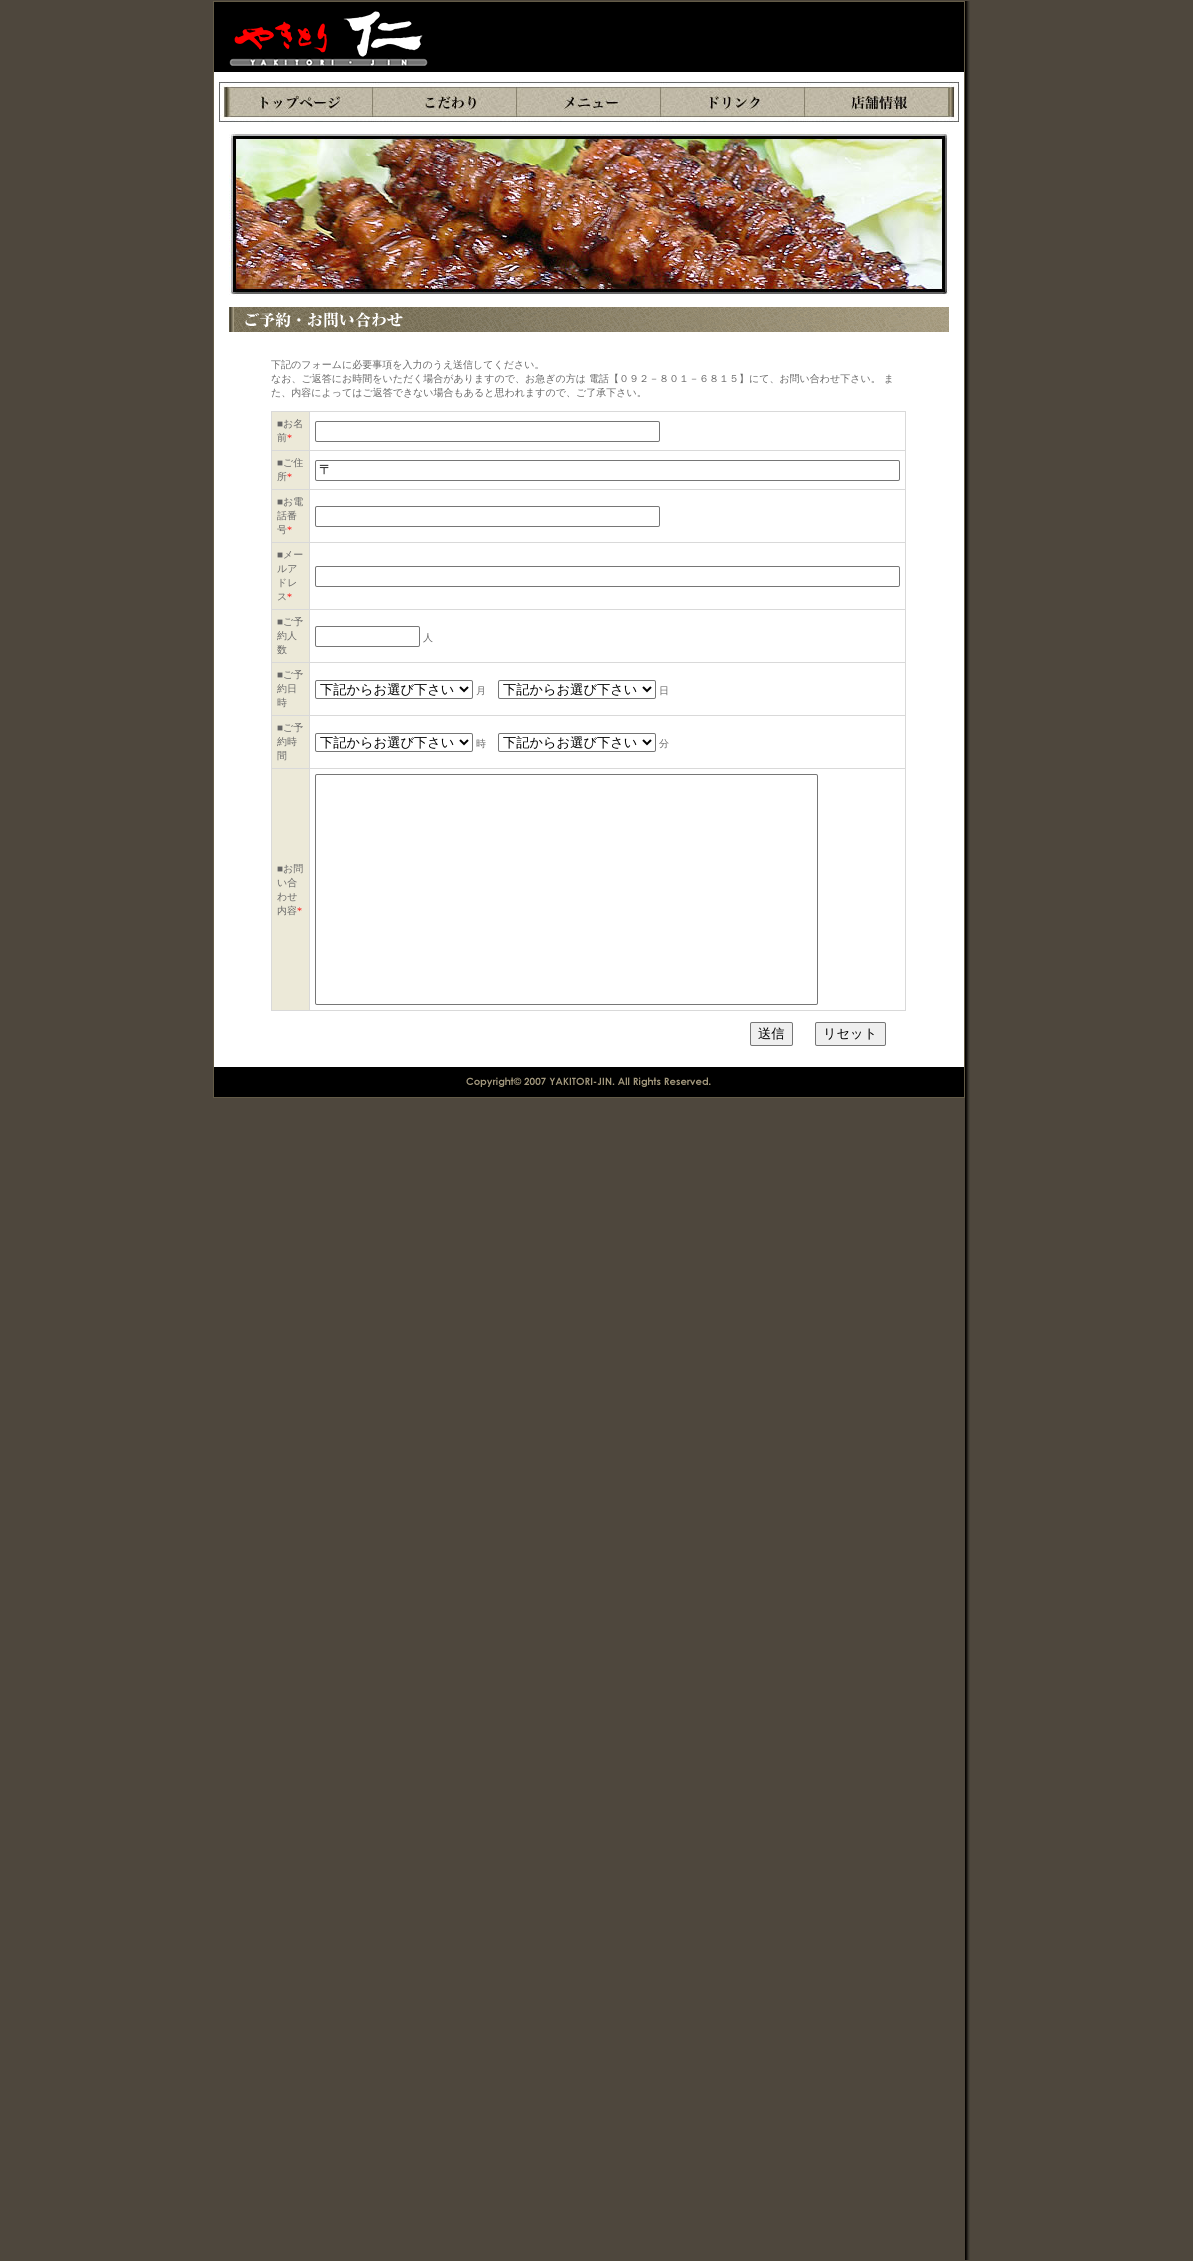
#include <cairo/cairo.h>
#include <math.h>
#include <stddef.h>

static cairo_t *cr;

static void use_color(int r, int g, int b) {
  cairo_set_source_rgb(cr, r / 255.0, g / 255.0, b / 255.0);
}

static void text(double x, double y, const char *s, const char *family, double size, int italic, int bold, int r, int g, int b) {
  cairo_select_font_face(cr, family, italic ? CAIRO_FONT_SLANT_ITALIC : CAIRO_FONT_SLANT_NORMAL,
    bold ? CAIRO_FONT_WEIGHT_BOLD : CAIRO_FONT_WEIGHT_NORMAL);
  cairo_set_font_size(cr, size);
  use_color(r, g, b);
  cairo_move_to(cr, x, y);
  cairo_show_text(cr, s);
}

static void box(double x, double y, double w, double h, int r, int g, int b) {
  use_color(r, g, b);
  cairo_rectangle(cr, x, y, w, h);
  cairo_fill(cr);
}

static void round_rect(double x, double y, double w, double h, double r) {
  cairo_new_sub_path(cr);
  cairo_arc(cr, x + w - r, y + h - r, r, 0, M_PI / 2);
  cairo_arc(cr, x + r, y + h - r, r, M_PI / 2, M_PI);
  cairo_arc(cr, x + r, y + r, r, M_PI, 1.5 * M_PI);
  cairo_arc(cr, x + w - r, y + r, r, 1.5 * M_PI, 2 * M_PI);
  cairo_close_path(cr);
}

static void picture(const char *path, double x, double y, double w, double h) {
  cairo_surface_t *image = cairo_image_surface_create_from_png(path);
  cairo_save(cr);
  cairo_set_source_surface(cr, image, x, y);
  cairo_rectangle(cr, x, y, w, h);
  cairo_fill(cr);
  cairo_restore(cr);
  cairo_surface_destroy(image);
}

static void draw(void) {
  use_color(78, 71, 61);
  cairo_paint(cr);
  box(213, 1, 752, 1097, 99, 91, 71);
  box(214, 2, 750, 70, 0, 0, 0);
  picture("img_01.png", 229, 11, 199, 55);
  box(214, 72, 750, 995, 255, 255, 255);
  picture("img_02.png", 219, 82, 740, 40);
  picture("img_03.png", 229, 132, 720, 164);
  picture("img_04.png", 229, 307, 720, 25);
  box(271, 411, 635, 600, 217, 217, 217);
  box(272, 412, 37, 38, 236, 233, 216);
  box(310, 412, 595, 38, 255, 255, 255);
  round_rect(315.5, 421.5, 344, 20, 1.5);
  use_color(118, 118, 118);
  cairo_set_line_width(cr, 1);
  cairo_stroke(cr);
  box(272, 451, 37, 38, 236, 233, 216);
  box(310, 451, 595, 38, 255, 255, 255);
  round_rect(315.5, 460.5, 584, 20, 1.5);
  use_color(118, 118, 118);
  cairo_stroke(cr);
  box(272, 490, 37, 52, 236, 233, 216);
  box(310, 490, 595, 52, 255, 255, 255);
  round_rect(315.5, 506.5, 344, 20, 1.5);
  use_color(118, 118, 118);
  cairo_stroke(cr);
  box(272, 543, 37, 66, 236, 233, 216);
  box(310, 543, 595, 66, 255, 255, 255);
  round_rect(315.5, 566.5, 584, 20, 1.5);
  use_color(118, 118, 118);
  cairo_stroke(cr);
  box(272, 610, 37, 52, 236, 233, 216);
  box(310, 610, 595, 52, 255, 255, 255);
  round_rect(315.5, 626.5, 104, 20, 1.5);
  use_color(118, 118, 118);
  cairo_stroke(cr);
  box(272, 663, 37, 52, 236, 233, 216);
  box(310, 663, 595, 52, 255, 255, 255);
  round_rect(315.5, 680.5, 157, 18, 1.5);
  use_color(118, 118, 118);
  cairo_stroke(cr);
  cairo_new_path(cr);
  cairo_move_to(cr, 460, 687);
  cairo_line_to(cr, 464, 691);
  cairo_line_to(cr, 468, 687);
  use_color(0, 0, 0);
  cairo_set_line_width(cr, 2);
  cairo_stroke(cr);
  round_rect(498.5, 680.5, 157, 18, 1.5);
  use_color(118, 118, 118);
  cairo_set_line_width(cr, 1);
  cairo_stroke(cr);
  cairo_new_path(cr);
  cairo_move_to(cr, 643, 687);
  cairo_line_to(cr, 647, 691);
  cairo_line_to(cr, 651, 687);
  use_color(0, 0, 0);
  cairo_set_line_width(cr, 2);
  cairo_stroke(cr);
  box(272, 716, 37, 52, 236, 233, 216);
  box(310, 716, 595, 52, 255, 255, 255);
  round_rect(315.5, 733.5, 157, 18, 1.5);
  use_color(118, 118, 118);
  cairo_set_line_width(cr, 1);
  cairo_stroke(cr);
  cairo_new_path(cr);
  cairo_move_to(cr, 460, 740);
  cairo_line_to(cr, 464, 744);
  cairo_line_to(cr, 468, 740);
  use_color(0, 0, 0);
  cairo_set_line_width(cr, 2);
  cairo_stroke(cr);
  round_rect(498.5, 733.5, 157, 18, 1.5);
  use_color(118, 118, 118);
  cairo_set_line_width(cr, 1);
  cairo_stroke(cr);
  cairo_new_path(cr);
  cairo_move_to(cr, 643, 740);
  cairo_line_to(cr, 647, 744);
  cairo_line_to(cr, 651, 740);
  use_color(0, 0, 0);
  cairo_set_line_width(cr, 2);
  cairo_stroke(cr);
  box(272, 769, 37, 241, 236, 233, 216);
  box(310, 769, 595, 241, 255, 255, 255);
  round_rect(315.5, 774.5, 502, 230, 1.5);
  use_color(118, 118, 118);
  cairo_set_line_width(cr, 1);
  cairo_stroke(cr);
  use_color(239, 239, 239);
  round_rect(750.5, 1022.5, 42, 23, 1.5);
  cairo_fill_preserve(cr);
  use_color(118, 118, 118);
  cairo_stroke(cr);
  use_color(239, 239, 239);
  round_rect(815.5, 1022.5, 70, 23, 1.5);
  cairo_fill_preserve(cr);
  use_color(118, 118, 118);
  cairo_stroke(cr);
  picture("img_05.png", 214, 1067, 750, 30);
  picture("img_06.png", 965, 1, 5, 2259);
  text(271, 368, "下記のフォームに必要事項を入力のうえ送信してください。", "WenQuanYi Zen Hei Medium", 10, 0, 0, 102, 102, 102);
  text(271, 382, "なお、ご返答にお時間をいただく場合がありますので、お急ぎの方は 電話【０９２－８０１－６８１５】にて、お問い合わせ下さい。 ま", "WenQuanYi Zen Hei Medium", 10, 0, 0, 102, 102, 102);
  text(271, 396, "た、内容によってはご返答できない場合もあると思われますので、ご了承下さい。", "WenQuanYi Zen Hei Medium", 10, 0, 0, 102, 102, 102);
  text(277, 427, "■", "Liberation Serif", 10, 0, 0, 102, 102, 102);
  text(283, 427, "お名", "WenQuanYi Zen Hei Medium", 10, 0, 0, 102, 102, 102);
  text(277, 441, "前", "WenQuanYi Zen Hei Medium", 10, 0, 0, 102, 102, 102);
  text(287, 441, "*", "Liberation Serif", 10, 0, 0, 255, 0, 0);
  text(277, 466, "■", "Liberation Serif", 10, 0, 0, 102, 102, 102);
  text(283, 466, "ご住", "WenQuanYi Zen Hei Medium", 10, 0, 0, 102, 102, 102);
  text(277, 480, "所", "WenQuanYi Zen Hei Medium", 10, 0, 0, 102, 102, 102);
  text(287, 480, "*", "Liberation Serif", 10, 0, 0, 255, 0, 0);
  text(319, 474, "〒", "WenQuanYi Zen Hei Medium", 13.25, 0, 0, 0, 0, 0);
  text(277, 505, "■", "Liberation Serif", 10, 0, 0, 102, 102, 102);
  text(283, 505, "お電", "WenQuanYi Zen Hei Medium", 10, 0, 0, 102, 102, 102);
  text(277, 519, "話番", "WenQuanYi Zen Hei Medium", 10, 0, 0, 102, 102, 102);
  text(277, 533, "号", "WenQuanYi Zen Hei Medium", 10, 0, 0, 102, 102, 102);
  text(287, 533, "*", "Liberation Serif", 10, 0, 0, 255, 0, 0);
  text(277, 558, "■", "Liberation Serif", 10, 0, 0, 102, 102, 102);
  text(283, 558, "メー", "WenQuanYi Zen Hei Medium", 10, 0, 0, 102, 102, 102);
  text(277, 572, "ルア", "WenQuanYi Zen Hei Medium", 10, 0, 0, 102, 102, 102);
  text(277, 586, "ドレ", "WenQuanYi Zen Hei Medium", 10, 0, 0, 102, 102, 102);
  text(277, 600, "ス", "WenQuanYi Zen Hei Medium", 10, 0, 0, 102, 102, 102);
  text(287, 600, "*", "Liberation Serif", 10, 0, 0, 255, 0, 0);
  text(277, 625, "■", "Liberation Serif", 10, 0, 0, 102, 102, 102);
  text(283, 625, "ご予", "WenQuanYi Zen Hei Medium", 10, 0, 0, 102, 102, 102);
  text(277, 639, "約人", "WenQuanYi Zen Hei Medium", 10, 0, 0, 102, 102, 102);
  text(277, 653, "数", "WenQuanYi Zen Hei Medium", 10, 0, 0, 102, 102, 102);
  text(423, 641, "人", "WenQuanYi Zen Hei Medium", 10, 0, 0, 102, 102, 102);
  text(277, 678, "■", "Liberation Serif", 10, 0, 0, 102, 102, 102);
  text(283, 678, "ご予", "WenQuanYi Zen Hei Medium", 10, 0, 0, 102, 102, 102);
  text(277, 692, "約日", "WenQuanYi Zen Hei Medium", 10, 0, 0, 102, 102, 102);
  text(277, 706, "時", "WenQuanYi Zen Hei Medium", 10, 0, 0, 102, 102, 102);
  text(320, 694, "下記からお選び下さい", "WenQuanYi Zen Hei Medium", 13.25, 0, 0, 0, 0, 0);
  text(476, 694, "月", "WenQuanYi Zen Hei Medium", 10, 0, 0, 102, 102, 102);
  text(503, 694, "下記からお選び下さい", "WenQuanYi Zen Hei Medium", 13.25, 0, 0, 0, 0, 0);
  text(659, 694, "日", "WenQuanYi Zen Hei Medium", 10, 0, 0, 102, 102, 102);
  text(277, 731, "■", "Liberation Serif", 10, 0, 0, 102, 102, 102);
  text(283, 731, "ご予", "WenQuanYi Zen Hei Medium", 10, 0, 0, 102, 102, 102);
  text(277, 745, "約時", "WenQuanYi Zen Hei Medium", 10, 0, 0, 102, 102, 102);
  text(277, 759, "間", "WenQuanYi Zen Hei Medium", 10, 0, 0, 102, 102, 102);
  text(320, 747, "下記からお選び下さい", "WenQuanYi Zen Hei Medium", 13.25, 0, 0, 0, 0, 0);
  text(476, 747, "時", "WenQuanYi Zen Hei Medium", 10, 0, 0, 102, 102, 102);
  text(503, 747, "下記からお選び下さい", "WenQuanYi Zen Hei Medium", 13.25, 0, 0, 0, 0, 0);
  text(659, 747, "分", "WenQuanYi Zen Hei Medium", 10, 0, 0, 102, 102, 102);
  text(277, 872, "■", "Liberation Serif", 10, 0, 0, 102, 102, 102);
  text(283, 872, "お問", "WenQuanYi Zen Hei Medium", 10, 0, 0, 102, 102, 102);
  text(277, 886, "い合", "WenQuanYi Zen Hei Medium", 10, 0, 0, 102, 102, 102);
  text(277, 900, "わせ", "WenQuanYi Zen Hei Medium", 10, 0, 0, 102, 102, 102);
  text(277, 914, "内容", "WenQuanYi Zen Hei Medium", 10, 0, 0, 102, 102, 102);
  text(297, 914, "*", "Liberation Serif", 10, 0, 0, 255, 0, 0);
  text(758, 1038, "送信", "WenQuanYi Zen Hei Medium", 13.25, 0, 0, 0, 0, 0);
  text(823, 1038, "リセット", "WenQuanYi Zen Hei Medium", 13.25, 0, 0, 0, 0, 0);
}

int main(void) {
  cairo_surface_t *surface = cairo_image_surface_create(CAIRO_FORMAT_RGB24, 1193, 2261);
  cr = cairo_create(surface);
  cairo_font_options_t *options = cairo_font_options_create();
  cairo_font_options_set_hint_metrics(options, CAIRO_HINT_METRICS_OFF);
  cairo_font_options_set_hint_style(options, CAIRO_HINT_STYLE_NONE);
  cairo_set_font_options(cr, options);
  cairo_set_miter_limit(cr, 4);
  draw();
  cairo_surface_write_to_png(surface, "out.png");
  cairo_font_options_destroy(options);
  cairo_destroy(cr);
  cairo_surface_destroy(surface);
  return 0;
}
